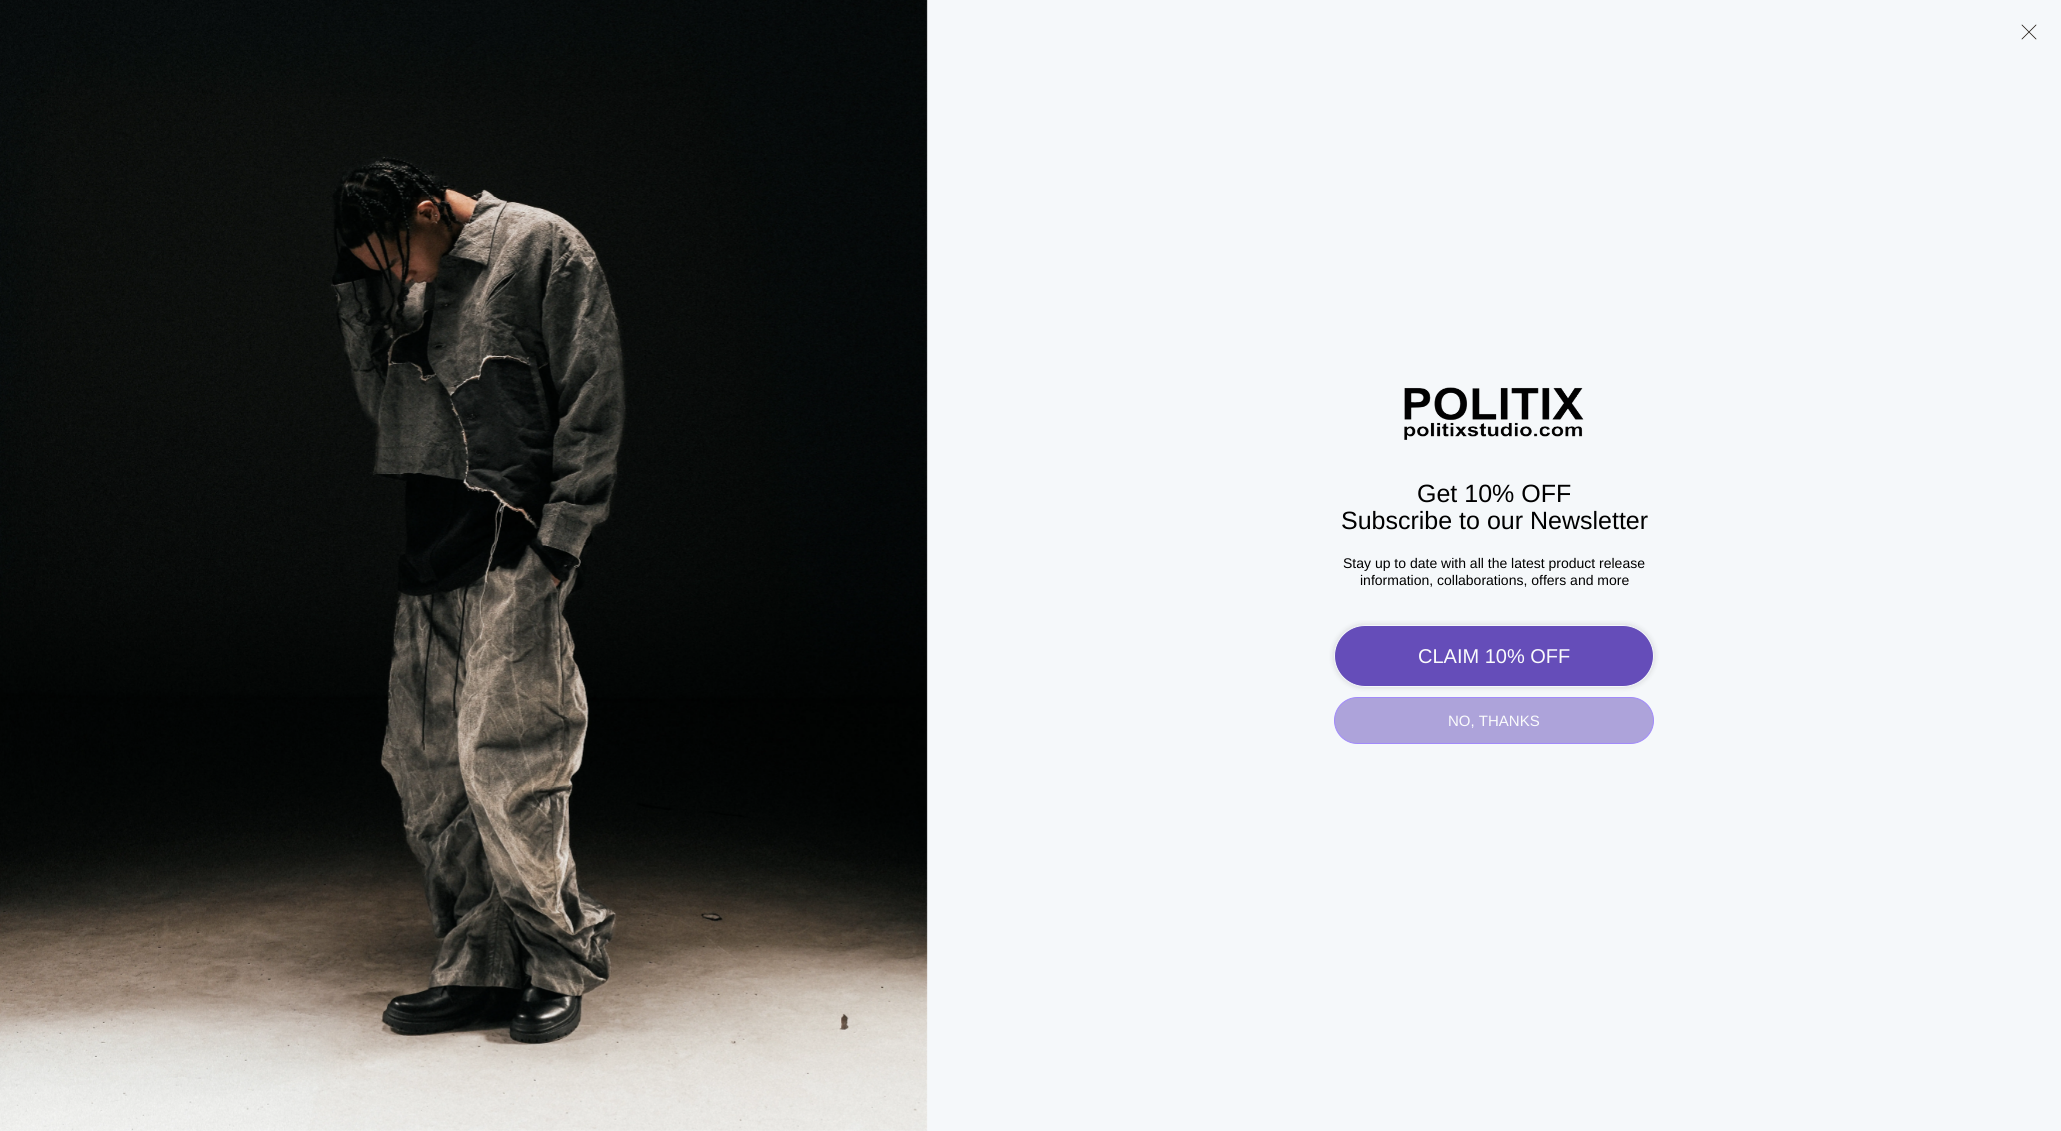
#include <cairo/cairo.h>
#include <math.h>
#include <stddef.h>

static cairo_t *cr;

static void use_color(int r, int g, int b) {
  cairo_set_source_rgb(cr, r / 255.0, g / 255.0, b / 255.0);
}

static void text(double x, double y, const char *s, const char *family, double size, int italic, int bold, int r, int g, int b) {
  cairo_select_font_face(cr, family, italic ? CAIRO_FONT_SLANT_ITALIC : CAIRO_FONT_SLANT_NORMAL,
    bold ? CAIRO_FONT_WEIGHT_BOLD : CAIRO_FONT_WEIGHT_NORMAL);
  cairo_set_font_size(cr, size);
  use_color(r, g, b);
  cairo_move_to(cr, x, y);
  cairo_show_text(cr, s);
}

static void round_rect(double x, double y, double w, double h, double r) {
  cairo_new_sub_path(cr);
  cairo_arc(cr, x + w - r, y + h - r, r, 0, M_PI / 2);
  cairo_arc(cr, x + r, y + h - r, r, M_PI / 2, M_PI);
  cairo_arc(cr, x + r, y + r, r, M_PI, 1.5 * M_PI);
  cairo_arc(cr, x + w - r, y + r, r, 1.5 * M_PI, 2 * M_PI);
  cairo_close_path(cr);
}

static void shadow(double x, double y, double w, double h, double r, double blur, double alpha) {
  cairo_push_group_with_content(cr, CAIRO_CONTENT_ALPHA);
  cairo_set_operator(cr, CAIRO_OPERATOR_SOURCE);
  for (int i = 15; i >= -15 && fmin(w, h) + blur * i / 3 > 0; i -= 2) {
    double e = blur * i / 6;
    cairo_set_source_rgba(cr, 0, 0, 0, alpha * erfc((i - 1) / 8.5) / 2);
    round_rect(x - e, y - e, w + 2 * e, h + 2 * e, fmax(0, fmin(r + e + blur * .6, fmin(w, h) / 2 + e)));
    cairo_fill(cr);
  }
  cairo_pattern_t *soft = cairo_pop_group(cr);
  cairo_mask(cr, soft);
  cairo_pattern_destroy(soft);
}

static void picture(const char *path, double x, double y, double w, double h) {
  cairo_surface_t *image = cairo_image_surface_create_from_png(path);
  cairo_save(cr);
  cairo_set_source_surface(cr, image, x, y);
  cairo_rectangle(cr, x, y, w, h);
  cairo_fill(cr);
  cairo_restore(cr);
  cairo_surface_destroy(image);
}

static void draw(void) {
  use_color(245, 248, 250);
  cairo_paint(cr);
  picture("img_01.png", 0, 0, 928, 1131);
  cairo_new_path(cr);
  cairo_move_to(cr, 2022, 25);
  cairo_line_to(cr, 2036, 39);
  cairo_move_to(cr, 2036, 25);
  cairo_line_to(cr, 2022, 39);
  use_color(36, 28, 21);
  cairo_set_line_width(cr, 0.8);
  cairo_set_line_cap(cr, CAIRO_LINE_CAP_ROUND);
  cairo_stroke(cr);
  picture("img_02.png", 1404, 387, 180, 53);
  use_color(25, 25, 25);
  shadow(1334, 625, 320, 62, 31, 3, 0.16);
  use_color(101, 77, 185);
  round_rect(1334.5, 625.5, 319, 61, 30.5);
  cairo_fill_preserve(cr);
  use_color(245, 248, 250);
  cairo_set_line_width(cr, 1);
  cairo_set_line_cap(cr, CAIRO_LINE_CAP_BUTT);
  cairo_stroke(cr);
  use_color(173, 163, 218);
  round_rect(1334.5, 697.5, 319, 46, 23);
  cairo_fill_preserve(cr);
  use_color(161, 138, 250);
  cairo_stroke(cr);
  text(1417, 502, "Get 10% OFF", "Liberation Sans", 25, 0, 0, 0, 0, 0);
  text(1341, 529, "Subscribe to our Newsletter", "Liberation Sans", 25, 0, 0, 0, 0, 0);
  text(1343, 568, "Stay up to date with all the latest product release", "Liberation Sans", 14, 0, 0, 0, 0, 0);
  text(1360, 585, "information, collaborations, offers and more", "Liberation Sans", 14, 0, 0, 0, 0, 0);
  text(1418, 663, "CLAIM 10% OFF", "Liberation Sans", 20, 0, 0, 250, 251, 252);
  text(1448, 726, "NO, THANKS", "Liberation Sans", 15, 0, 0, 250, 251, 252);
}

int main(void) {
  cairo_surface_t *surface = cairo_image_surface_create(CAIRO_FORMAT_RGB24, 2061, 1131);
  cr = cairo_create(surface);
  cairo_font_options_t *options = cairo_font_options_create();
  cairo_font_options_set_hint_metrics(options, CAIRO_HINT_METRICS_OFF);
  cairo_font_options_set_hint_style(options, CAIRO_HINT_STYLE_NONE);
  cairo_set_font_options(cr, options);
  cairo_set_miter_limit(cr, 4);
  draw();
  cairo_surface_write_to_png(surface, "out.png");
  cairo_font_options_destroy(options);
  cairo_destroy(cr);
  cairo_surface_destroy(surface);
  return 0;
}
